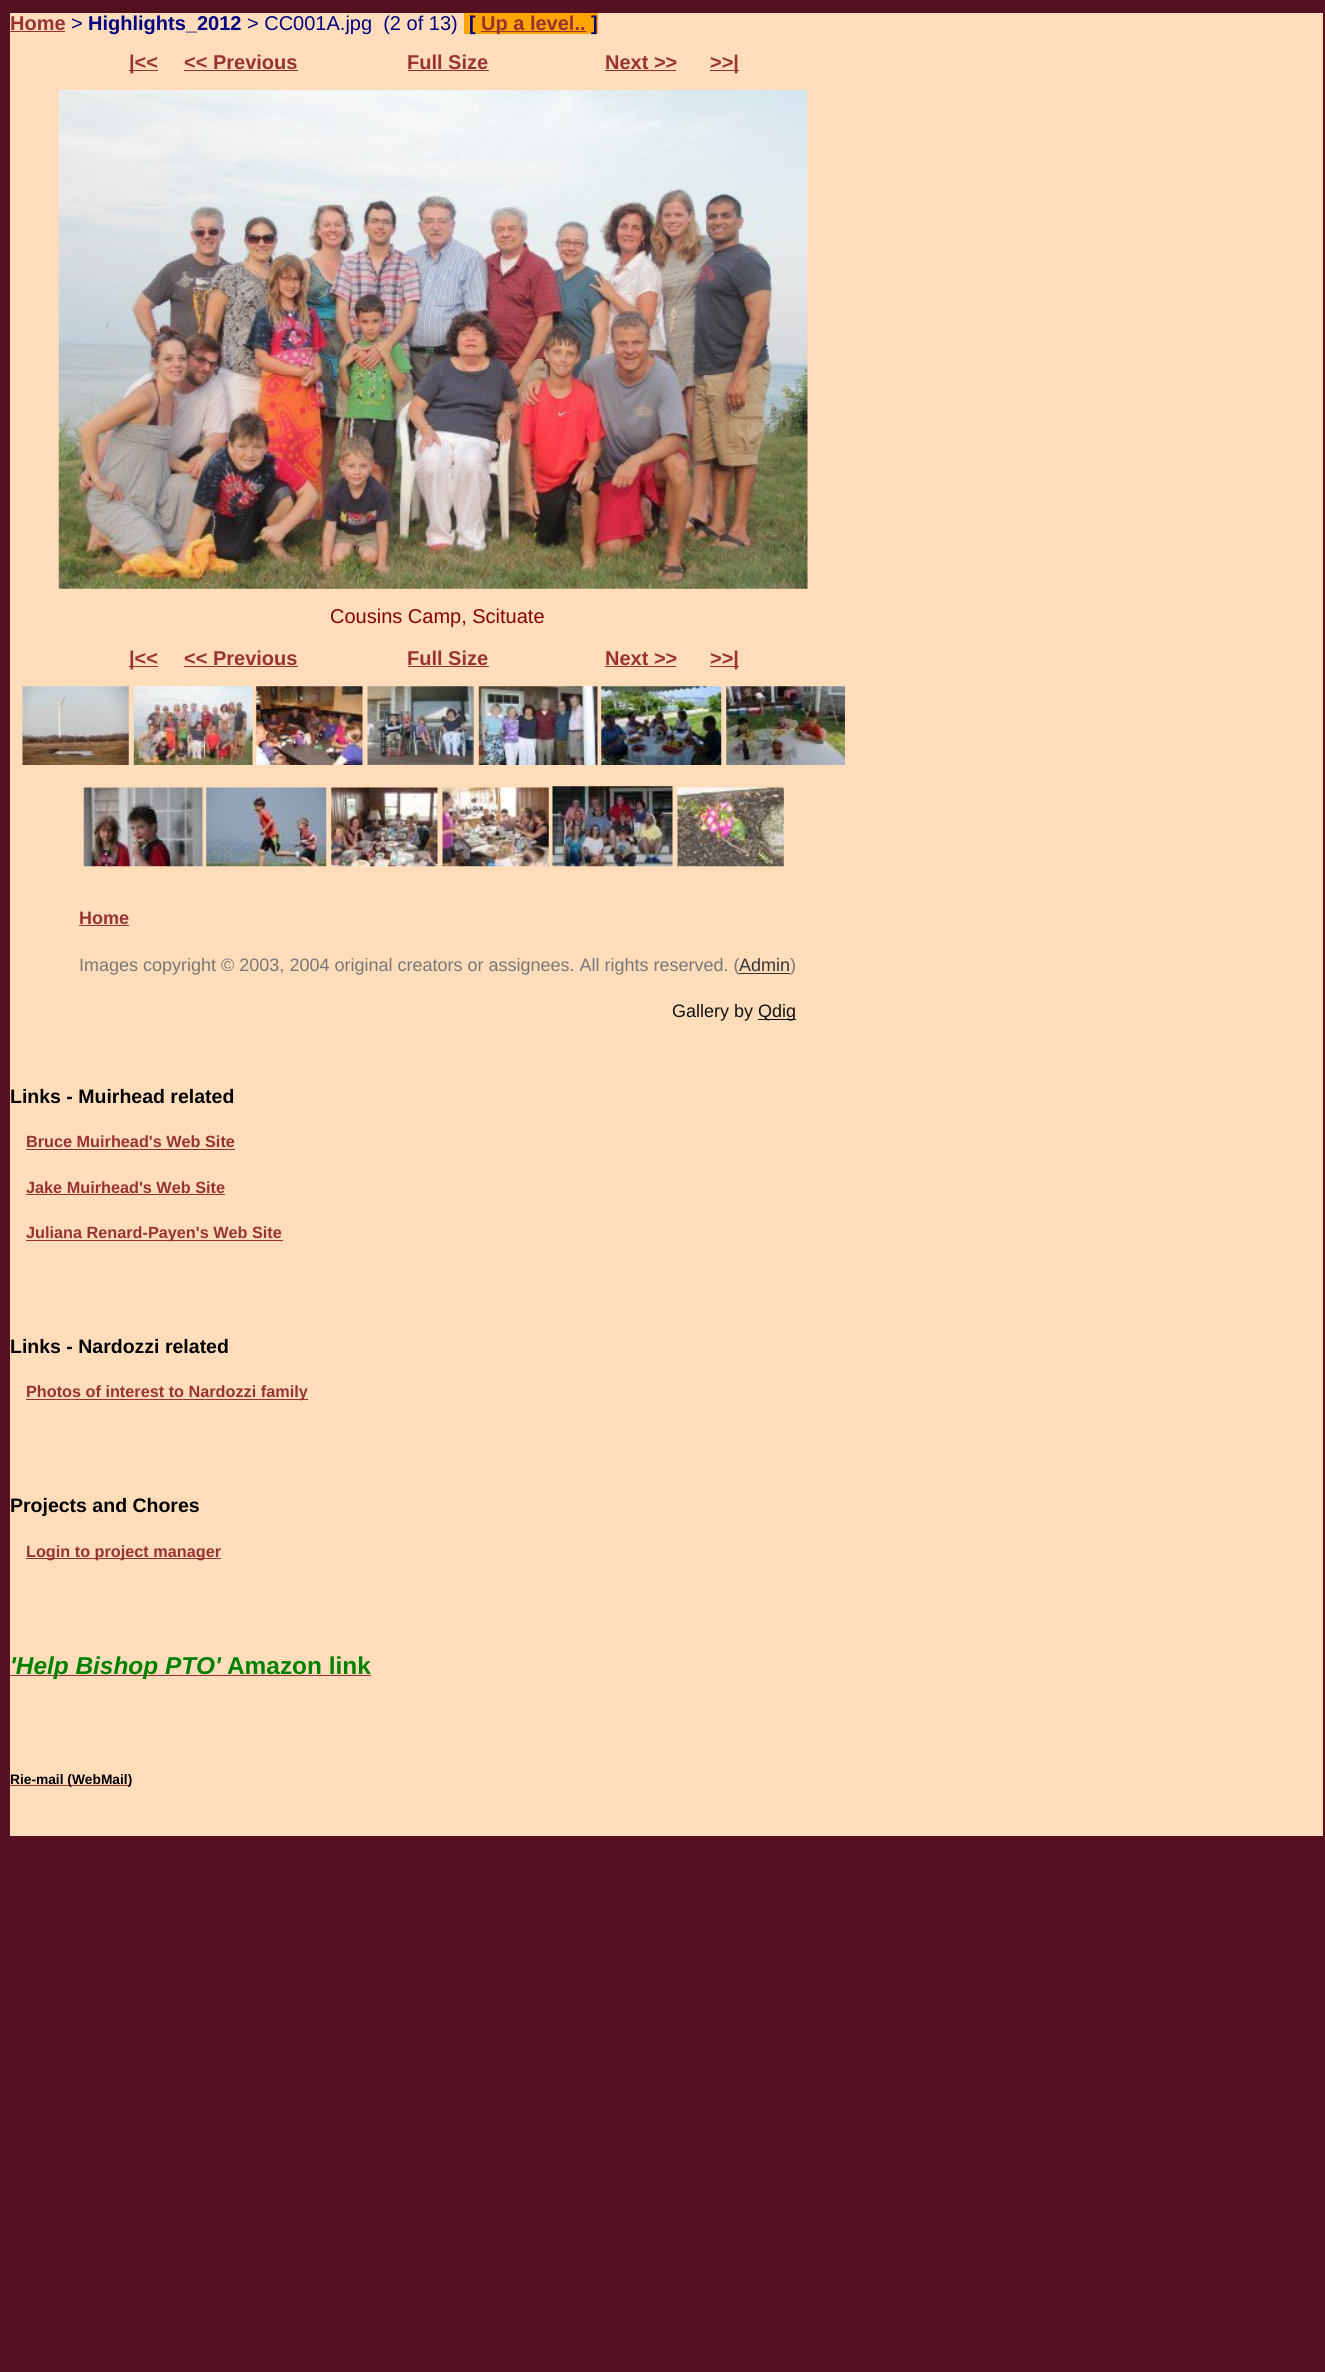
#include <cairo/cairo.h>
#include <math.h>
#include <stddef.h>

static cairo_t *cr;

static void use_color(int r, int g, int b) {
  cairo_set_source_rgb(cr, r / 255.0, g / 255.0, b / 255.0);
}

static void text(double x, double y, const char *s, const char *family, double size, int italic, int bold, int r, int g, int b) {
  cairo_select_font_face(cr, family, italic ? CAIRO_FONT_SLANT_ITALIC : CAIRO_FONT_SLANT_NORMAL,
    bold ? CAIRO_FONT_WEIGHT_BOLD : CAIRO_FONT_WEIGHT_NORMAL);
  cairo_set_font_size(cr, size);
  use_color(r, g, b);
  cairo_move_to(cr, x, y);
  cairo_show_text(cr, s);
}

static void box(double x, double y, double w, double h, int r, int g, int b) {
  use_color(r, g, b);
  cairo_rectangle(cr, x, y, w, h);
  cairo_fill(cr);
}

static void picture(const char *path, double x, double y, double w, double h) {
  cairo_surface_t *image = cairo_image_surface_create_from_png(path);
  cairo_save(cr);
  cairo_set_source_surface(cr, image, x, y);
  cairo_rectangle(cr, x, y, w, h);
  cairo_fill(cr);
  cairo_restore(cr);
  cairo_surface_destroy(image);
}

static void draw(void) {
  use_color(85, 17, 34);
  cairo_paint(cr);
  box(10, 13, 1313, 1823, 255, 221, 187);
  box(10, 31, 55, 1, 153, 51, 51);
  box(464, 13, 134, 21, 255, 165, 0);
  box(481, 31, 105, 1, 153, 51, 51);
  box(129, 70, 29, 1, 153, 51, 51);
  box(184, 70, 114, 1, 153, 51, 51);
  box(408, 70, 81, 1, 153, 51, 51);
  box(605, 70, 71, 1, 153, 51, 51);
  box(710, 70, 29, 1, 153, 51, 51);
  picture("img_01.png", 58, 90, 750, 499);
  box(129, 666, 29, 1, 153, 51, 51);
  box(184, 666, 114, 1, 153, 51, 51);
  box(408, 666, 81, 1, 153, 51, 51);
  box(605, 666, 71, 1, 153, 51, 51);
  box(710, 666, 29, 1, 153, 51, 51);
  picture("img_02.png", 22, 686, 107, 79);
  picture("img_03.png", 133, 686, 120, 79);
  picture("img_04.png", 256, 686, 107, 79);
  picture("img_05.png", 367, 686, 107, 79);
  picture("img_06.png", 478, 686, 120, 79);
  picture("img_07.png", 601, 686, 121, 79);
  picture("img_08.png", 726, 686, 119, 79);
  picture("img_09.png", 83, 787, 120, 80);
  picture("img_10.png", 206, 787, 121, 80);
  picture("img_11.png", 331, 787, 107, 80);
  picture("img_12.png", 442, 787, 107, 80);
  picture("img_13.png", 552, 786, 121, 81);
  picture("img_14.png", 677, 787, 107, 80);
  box(79, 925, 50, 1, 153, 51, 51);
  box(739, 973, 51, 1, 51, 51, 51);
  box(758, 1019, 38, 1, 17, 17, 17);
  box(26, 1149, 209, 1, 153, 51, 51);
  box(26, 1194, 199, 1, 153, 51, 51);
  box(26, 1240, 257, 1, 153, 51, 51);
  box(26, 1399, 282, 1, 153, 51, 51);
  box(26, 1558, 195, 1, 153, 51, 51);
  box(10, 1675, 211, 1, 153, 51, 51);
  box(10, 1785, 121, 1, 153, 51, 51);
  text(10, 30, "Home", "Liberation Sans", 20, 0, 1, 153, 51, 51);
  text(71, 30, ">", "Liberation Sans", 20, 0, 0, 0, 0, 128);
  text(88, 30, "Highlights_2012", "Liberation Sans", 20, 0, 1, 0, 0, 128);
  text(247, 30, "> CC001A.jpg  (2 of 13)", "Liberation Sans", 20, 0, 0, 0, 0, 128);
  text(469, 30, "[", "Liberation Sans", 20, 0, 1, 0, 0, 128);
  text(481, 30, "Up a level..", "Liberation Sans", 20, 0, 1, 153, 51, 51);
  text(591, 30, "]", "Liberation Sans", 20, 0, 1, 0, 0, 128);
  text(129, 69, "|<<", "Liberation Sans", 20, 0, 1, 153, 51, 51);
  text(184, 69, "<< Previous", "Liberation Sans", 20, 0, 1, 153, 51, 51);
  text(407, 69, "Full Size", "Liberation Sans", 20, 0, 1, 153, 51, 51);
  text(605, 69, "Next >>", "Liberation Sans", 20, 0, 1, 153, 51, 51);
  text(710, 69, ">>|", "Liberation Sans", 20, 0, 1, 153, 51, 51);
  text(330, 623, "Cousins Camp, Scituate", "Liberation Sans", 20, 0, 0, 136, 0, 0);
  text(129, 665, "|<<", "Liberation Sans", 20, 0, 1, 153, 51, 51);
  text(184, 665, "<< Previous", "Liberation Sans", 20, 0, 1, 153, 51, 51);
  text(407, 665, "Full Size", "Liberation Sans", 20, 0, 1, 153, 51, 51);
  text(605, 665, "Next >>", "Liberation Sans", 20, 0, 1, 153, 51, 51);
  text(710, 665, ">>|", "Liberation Sans", 20, 0, 1, 153, 51, 51);
  text(79, 924, "Home", "Liberation Sans", 18, 0, 1, 153, 51, 51);
  text(79, 971, "Images copyright © 2003, 2004 original creators or assignees. All rights reserved. (", "Liberation Sans", 18, 0, 0, 119, 119, 119);
  text(739, 971, "Admin", "Liberation Sans", 18, 0, 0, 51, 51, 51);
  text(790, 971, ")", "Liberation Sans", 18, 0, 0, 119, 119, 119);
  text(672, 1017, "Gallery by", "Liberation Sans", 18, 0, 0, 17, 17, 17);
  text(758, 1017, "Qdig", "Liberation Sans", 18, 0, 0, 17, 17, 17);
  text(10, 1103, "Links - Muirhead related", "Liberation Sans", 19.5, 0, 1, 0, 0, 0);
  text(26, 1147, "Bruce Muirhead's Web Site", "Liberation Sans", 16.25, 0, 1, 153, 51, 51);
  text(26, 1193, "Jake Muirhead's Web Site", "Liberation Sans", 16.25, 0, 1, 153, 51, 51);
  text(26, 1238, "Juliana Renard-Payen's Web Site", "Liberation Sans", 16.25, 0, 1, 153, 51, 51);
  text(10, 1353, "Links - Nardozzi related", "Liberation Sans", 19.5, 0, 1, 0, 0, 0);
  text(26, 1397, "Photos of interest to Nardozzi family", "Liberation Sans", 16.25, 0, 1, 153, 51, 51);
  text(10, 1512, "Projects and Chores", "Liberation Sans", 19.5, 0, 1, 0, 0, 0);
  text(26, 1557, "Login to project manager", "Liberation Sans", 16.25, 0, 1, 153, 51, 51);
  text(10, 1674, "'Help Bishop PTO'", "Liberation Sans", 24.4, 1, 1, 0, 128, 0);
  box(221, 1675, 150, 1, 153, 51, 51);
  text(227, 1674, "Amazon link", "Liberation Sans", 24.4, 0, 1, 0, 128, 0);
  text(10, 1784, "Rie-mail (WebMail)", "Liberation Sans", 13.75, 0, 1, 0, 0, 0);
}

int main(void) {
  cairo_surface_t *surface = cairo_image_surface_create(CAIRO_FORMAT_RGB24, 1325, 2372);
  cr = cairo_create(surface);
  cairo_font_options_t *options = cairo_font_options_create();
  cairo_font_options_set_hint_metrics(options, CAIRO_HINT_METRICS_OFF);
  cairo_font_options_set_hint_style(options, CAIRO_HINT_STYLE_NONE);
  cairo_set_font_options(cr, options);
  cairo_set_miter_limit(cr, 4);
  draw();
  cairo_surface_write_to_png(surface, "out.png");
  cairo_font_options_destroy(options);
  cairo_destroy(cr);
  cairo_surface_destroy(surface);
  return 0;
}
